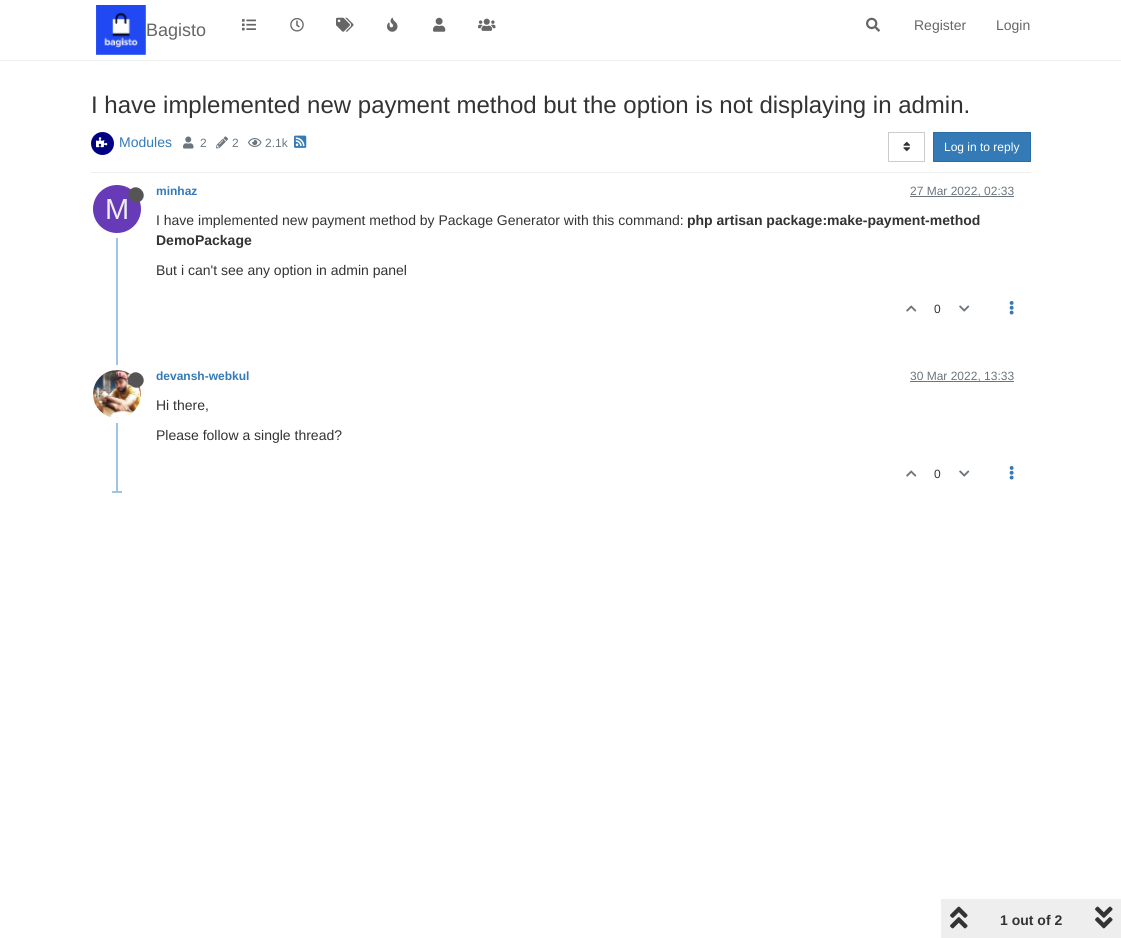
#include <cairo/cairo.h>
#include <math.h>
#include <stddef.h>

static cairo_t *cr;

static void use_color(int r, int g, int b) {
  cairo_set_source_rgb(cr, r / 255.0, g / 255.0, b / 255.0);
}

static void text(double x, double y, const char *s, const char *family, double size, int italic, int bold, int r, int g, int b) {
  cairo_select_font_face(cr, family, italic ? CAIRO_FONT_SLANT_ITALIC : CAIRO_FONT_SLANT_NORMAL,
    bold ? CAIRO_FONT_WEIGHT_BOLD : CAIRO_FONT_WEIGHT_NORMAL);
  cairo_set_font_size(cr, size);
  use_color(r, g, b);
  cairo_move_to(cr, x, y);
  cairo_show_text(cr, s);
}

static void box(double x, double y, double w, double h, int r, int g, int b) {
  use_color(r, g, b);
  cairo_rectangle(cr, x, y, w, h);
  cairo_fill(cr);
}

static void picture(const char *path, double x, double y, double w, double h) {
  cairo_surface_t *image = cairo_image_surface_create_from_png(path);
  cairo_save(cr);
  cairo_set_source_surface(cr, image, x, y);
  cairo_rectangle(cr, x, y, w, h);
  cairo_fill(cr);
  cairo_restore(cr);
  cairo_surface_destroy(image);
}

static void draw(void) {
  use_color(255, 255, 255);
  cairo_paint(cr);
  box(0, 60, 1121, 1, 238, 238, 238);
  picture("img_01.png", 96, 5, 50, 50);
  picture("img_02.png", 242, 19, 14, 12);
  picture("img_03.png", 290, 18, 14, 14);
  picture("img_04.png", 336, 17, 18, 15);
  picture("img_05.png", 387, 17, 11, 15);
  picture("img_06.png", 433, 17, 13, 15);
  picture("img_07.png", 478, 18, 18, 13);
  picture("img_08.png", 866, 17, 14, 15);
  box(91, 172, 940, 1, 238, 238, 238);
  use_color(0, 0, 128);
  cairo_arc(cr, 102.5, 143.5, 11.5, 0, 2 * M_PI);
  cairo_fill(cr);
  picture("img_09.png", 96, 137, 12, 11);
  picture("img_10.png", 183, 136, 11, 13);
  picture("img_11.png", 216, 136, 12, 13);
  picture("img_12.png", 248, 138, 14, 9);
  picture("img_13.png", 294, 135, 13, 13);
  cairo_rectangle(cr, 888.5, 132.5, 36, 29);
  use_color(204, 204, 204);
  cairo_set_line_width(cr, 1);
  cairo_stroke(cr);
  picture("img_14.png", 903, 141, 8, 11);
  use_color(51, 122, 183);
  cairo_rectangle(cr, 933.5, 132.5, 97, 29);
  cairo_fill_preserve(cr);
  use_color(46, 109, 164);
  cairo_stroke(cr);
  box(116, 183, 2, 310, 160, 196, 228);
  box(910, 196, 104, 1, 108, 117, 125);
  cairo_arc(cr, 117, 209, 26.5, 0, 2 * M_PI);
  use_color(255, 255, 255);
  cairo_set_line_width(cr, 5);
  cairo_stroke(cr);
  use_color(103, 58, 183);
  cairo_arc(cr, 117, 209, 24, 0, 2 * M_PI);
  cairo_fill(cr);
  use_color(85, 85, 85);
  cairo_new_path(cr);
  cairo_move_to(cr, 130.5, 189.5);
  cairo_curve_to(cr, 137.5, 182.5, 148.5, 193.5, 141.5, 200.5);
  cairo_curve_to(cr, 134.5, 207.5, 123.5, 196.5, 130.5, 189.5);
  cairo_close_path(cr);
  cairo_fill(cr);
  picture("img_15.png", 906, 305, 11, 7);
  picture("img_16.png", 959, 305, 11, 7);
  picture("img_17.png", 1009, 301, 5, 14);
  cairo_arc(cr, 117, 394, 26.5, 0, 2 * M_PI);
  use_color(255, 255, 255);
  cairo_stroke(cr);
  picture("img_18.png", 93, 370, 48, 48);
  use_color(85, 85, 85);
  cairo_new_path(cr);
  cairo_move_to(cr, 130.5, 374.5);
  cairo_curve_to(cr, 137.5, 367.5, 148.5, 378.5, 141.5, 385.5);
  cairo_curve_to(cr, 134.5, 392.5, 123.5, 381.5, 130.5, 374.5);
  cairo_close_path(cr);
  cairo_fill(cr);
  box(910, 381, 104, 1, 108, 117, 125);
  picture("img_15.png", 906, 470, 11, 7);
  picture("img_16.png", 959, 470, 11, 7);
  picture("img_17.png", 1009, 466, 5, 14);
  box(112, 491, 10, 2, 160, 196, 228);
  box(941, 899, 180, 39, 238, 238, 238);
  picture("img_19.png", 950, 906, 18, 23);
  picture("img_20.png", 1095, 906, 18, 23);
  text(146, 36, "Bagisto", "Liberation Sans", 18, 0, 0, 102, 102, 102);
  text(914, 30, "Register", "Liberation Sans", 14, 0, 0, 102, 102, 102);
  text(996, 30, "Login", "Liberation Sans", 14, 0, 0, 102, 102, 102);
  text(91, 113, "I have implemented new payment method but the option is not displaying in admin.", "Liberation Sans", 24, 0, 0, 51, 51, 51);
  text(119, 147, "Modules", "Liberation Sans", 14, 0, 0, 51, 122, 183);
  text(200, 147, "2", "Liberation Sans", 12, 0, 0, 108, 117, 125);
  text(232, 147, "2", "Liberation Sans", 12, 0, 0, 108, 117, 125);
  text(265, 147, "2.1k", "Liberation Sans", 12, 0, 0, 108, 117, 125);
  text(944, 151, "Log in to reply", "Liberation Sans", 12, 0, 0, 255, 255, 255);
  text(156, 195, "minhaz", "Liberation Sans", 12, 0, 1, 51, 122, 183);
  text(910, 195, "27 Mar 2022, 02:33", "Liberation Sans", 12, 0, 0, 108, 117, 125);
  text(105, 219, "M", "Liberation Sans", 29, 0, 0, 238, 238, 238);
  text(156, 225, "I have implemented new payment method by Package Generator with this command:", "Liberation Sans", 14, 0, 0, 51, 51, 51);
  text(687, 225, "php artisan package:make-payment-method", "Liberation Sans", 14, 0, 1, 51, 51, 51);
  text(156, 245, "DemoPackage", "Liberation Sans", 14, 0, 1, 51, 51, 51);
  text(156, 275, "But i can't see any option in admin panel", "Liberation Sans", 14, 0, 0, 51, 51, 51);
  text(934, 313, "0", "Liberation Sans", 12, 0, 0, 51, 51, 51);
  text(156, 380, "devansh-webkul", "Liberation Sans", 12, 0, 1, 51, 122, 183);
  text(910, 380, "30 Mar 2022, 13:33", "Liberation Sans", 12, 0, 0, 108, 117, 125);
  text(156, 410, "Hi there,", "Liberation Sans", 14, 0, 0, 51, 51, 51);
  text(156, 440, "Please follow a single thread?", "Liberation Sans", 14, 0, 0, 51, 51, 51);
  text(934, 478, "0", "Liberation Sans", 12, 0, 0, 51, 51, 51);
  text(1000, 925, "1 out of 2", "Liberation Sans", 14, 0, 1, 51, 51, 51);
}

int main(void) {
  cairo_surface_t *surface = cairo_image_surface_create(CAIRO_FORMAT_RGB24, 1121, 938);
  cr = cairo_create(surface);
  cairo_font_options_t *options = cairo_font_options_create();
  cairo_font_options_set_hint_metrics(options, CAIRO_HINT_METRICS_OFF);
  cairo_font_options_set_hint_style(options, CAIRO_HINT_STYLE_NONE);
  cairo_set_font_options(cr, options);
  cairo_set_miter_limit(cr, 4);
  draw();
  cairo_surface_write_to_png(surface, "out.png");
  cairo_font_options_destroy(options);
  cairo_destroy(cr);
  cairo_surface_destroy(surface);
  return 0;
}
